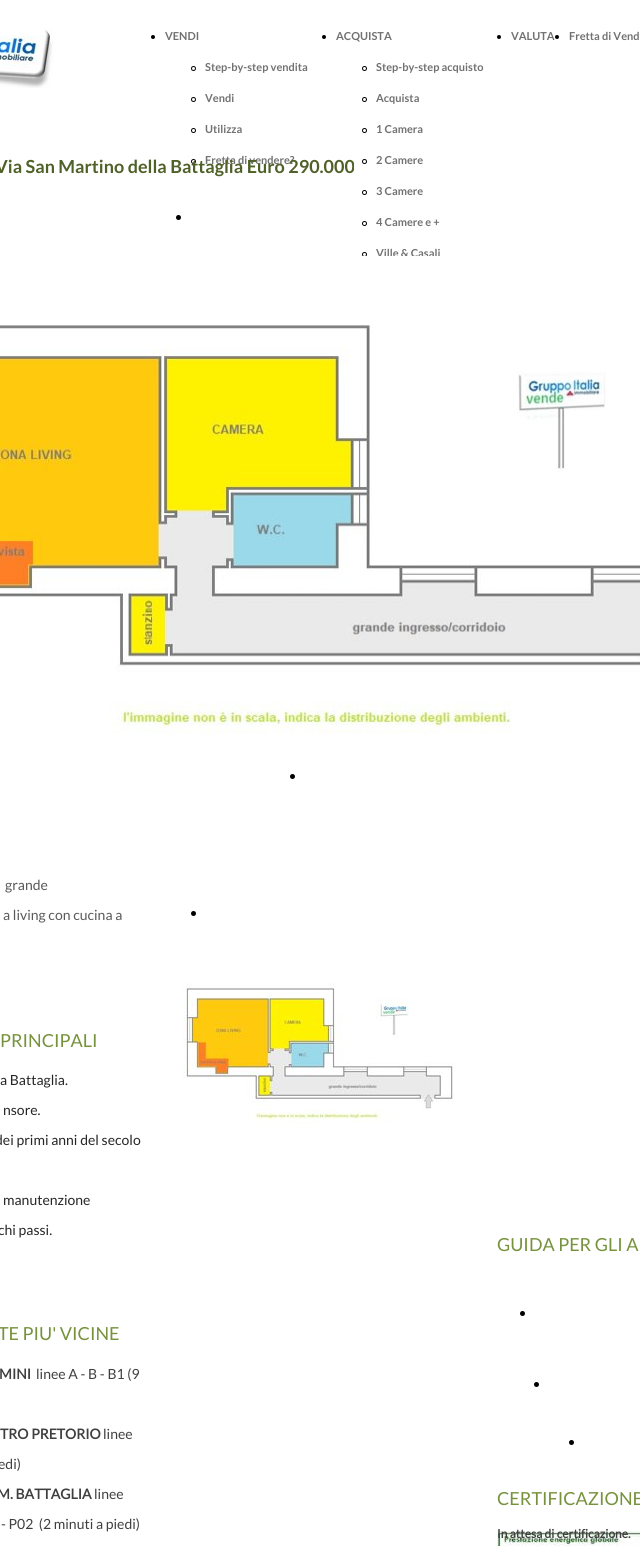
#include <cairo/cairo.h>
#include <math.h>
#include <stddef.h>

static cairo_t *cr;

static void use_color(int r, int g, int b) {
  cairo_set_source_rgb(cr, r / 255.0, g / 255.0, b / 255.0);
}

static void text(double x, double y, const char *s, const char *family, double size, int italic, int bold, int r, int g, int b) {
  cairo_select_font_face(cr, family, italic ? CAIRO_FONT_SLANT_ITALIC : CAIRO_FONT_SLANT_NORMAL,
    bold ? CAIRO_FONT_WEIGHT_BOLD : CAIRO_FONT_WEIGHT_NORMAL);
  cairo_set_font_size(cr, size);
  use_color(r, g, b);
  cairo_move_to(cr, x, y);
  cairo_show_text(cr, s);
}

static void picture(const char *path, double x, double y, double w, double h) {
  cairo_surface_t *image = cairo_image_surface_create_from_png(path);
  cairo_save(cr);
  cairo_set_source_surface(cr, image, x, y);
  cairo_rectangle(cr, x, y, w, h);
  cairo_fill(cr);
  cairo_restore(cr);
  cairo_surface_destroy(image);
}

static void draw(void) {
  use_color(255, 255, 255);
  cairo_paint(cr);
  picture("img_01.png", 0, 29, 53, 59);
  use_color(0, 0, 0);
  cairo_arc(cr, 153, 37, 2, 0, 2 * M_PI);
  cairo_fill(cr);
  cairo_arc(cr, 193.5, 68.5, 2, 0, 2 * M_PI);
  cairo_set_line_width(cr, 1);
  cairo_stroke(cr);
  cairo_arc(cr, 193.5, 99.5, 2, 0, 2 * M_PI);
  cairo_stroke(cr);
  cairo_arc(cr, 193.5, 130.5, 2, 0, 2 * M_PI);
  cairo_stroke(cr);
  cairo_arc(cr, 193.5, 161.5, 2, 0, 2 * M_PI);
  cairo_stroke(cr);
  cairo_arc(cr, 324, 37, 2, 0, 2 * M_PI);
  cairo_fill(cr);
  cairo_arc(cr, 364.5, 68.5, 2, 0, 2 * M_PI);
  cairo_stroke(cr);
  cairo_arc(cr, 364.5, 99.5, 2, 0, 2 * M_PI);
  cairo_stroke(cr);
  cairo_arc(cr, 364.5, 130.5, 2, 0, 2 * M_PI);
  cairo_stroke(cr);
  cairo_arc(cr, 364.5, 161.5, 2, 0, 2 * M_PI);
  cairo_stroke(cr);
  cairo_arc(cr, 364.5, 192.5, 2, 0, 2 * M_PI);
  cairo_stroke(cr);
  cairo_arc(cr, 364.5, 223.5, 2, 0, 2 * M_PI);
  cairo_stroke(cr);
  cairo_arc(cr, 364.5, 254.5, 2, 0, 2 * M_PI);
  cairo_stroke(cr);
  cairo_arc(cr, 499, 37, 2, 0, 2 * M_PI);
  cairo_fill(cr);
  cairo_arc(cr, 557, 37, 2, 0, 2 * M_PI);
  cairo_fill(cr);
  cairo_arc(cr, 178.5, 217.5, 2.5, 0, 2 * M_PI);
  cairo_fill(cr);
  cairo_arc(cr, 292.5, 776.5, 2.5, 0, 2 * M_PI);
  cairo_fill(cr);
  cairo_arc(cr, 193.5, 913.5, 2.5, 0, 2 * M_PI);
  cairo_fill(cr);
  picture("img_03.png", 183, 982, 272, 142);
  cairo_arc(cr, 522.5, 1313.5, 2.5, 0, 2 * M_PI);
  cairo_fill(cr);
  cairo_arc(cr, 536.5, 1384.5, 2.5, 0, 2 * M_PI);
  cairo_fill(cr);
  cairo_arc(cr, 571.5, 1442.5, 2.5, 0, 2 * M_PI);
  cairo_fill(cr);
  picture("img_04.png", 497, 1531, 143, 15);
  text(165, 40, "VENDI", "Lato", 11, 0, 1, 113, 113, 113);
  text(205, 71, "Step-by-step vendita", "Lato", 11, 0, 1, 113, 113, 113);
  text(205, 102, "Vendi", "Lato", 11, 0, 1, 113, 113, 113);
  text(205, 133, "Utilizza", "Lato", 11, 0, 1, 113, 113, 113);
  text(205, 164, "Fretta di vendere?", "Lato", 11, 0, 1, 113, 113, 113);
  text(336, 40, "ACQUISTA", "Lato", 11, 0, 1, 113, 113, 113);
  text(376, 71, "Step-by-step acquisto", "Lato", 11, 0, 1, 113, 113, 113);
  text(376, 102, "Acquista", "Lato", 11, 0, 1, 113, 113, 113);
  text(376, 133, "1 Camera", "Lato", 11, 0, 1, 113, 113, 113);
  text(376, 164, "2 Camere", "Lato", 11, 0, 1, 113, 113, 113);
  text(376, 195, "3 Camere", "Lato", 11, 0, 1, 113, 113, 113);
  text(376, 226, "4 Camere e +", "Lato", 11, 0, 1, 113, 113, 113);
  text(376, 257, "Ville & Casali", "Lato", 11, 0, 1, 113, 113, 113);
  text(511, 40, "VALUTA", "Lato", 11, 0, 1, 113, 113, 113);
  text(569, 40, "Fretta di Vend", "Lato", 11, 0, 1, 113, 113, 113);
  text(-5, 173, "Via San Martino della Battaglia Euro 290.000", "Lato", 18, 0, 1, 79, 97, 40);
  picture("img_02.png", 0, 256, 640, 490);
  text(5, 890, "grande", "Lato", 14, 0, 0, 89, 89, 89);
  text(3, 920, "a living con cucina a", "Lato", 14, 0, 0, 89, 89, 89);
  text(0, 1047, "PRINCIPALI", "Lato", 18, 0, 0, 118, 146, 60);
  text(0, 1085, "a Battaglia.", "Lato", 14, 0, 0, 38, 38, 38);
  text(3, 1115, "nsore.", "Lato", 14, 0, 0, 38, 38, 38);
  text(-5, 1145, "dei primi anni del secolo", "Lato", 14, 0, 0, 38, 38, 38);
  text(3, 1205, "manutenzione", "Lato", 14, 0, 0, 38, 38, 38);
  text(-2, 1235, "chi passi.", "Lato", 14, 0, 0, 38, 38, 38);
  text(497, 1251, "GUIDA PER GLI A", "Lato", 18, 0, 0, 118, 146, 60);
  text(-2, 1340, "TE PIU' VICINE", "Lato", 18, 0, 0, 118, 146, 60);
  text(-1, 1379, "MINI", "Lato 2", 14, 0, 1, 63, 63, 63);
  text(36, 1379, "linee A - B - B1 (9", "Lato", 14, 0, 0, 63, 63, 63);
  text(0, 1439, "TRO PRETORIO", "Lato 2", 14, 0, 1, 63, 63, 63);
  text(103, 1439, "linee", "Lato", 14, 0, 0, 63, 63, 63);
  text(-2, 1469, "edi)", "Lato", 14, 0, 0, 63, 63, 63);
  text(-3, 1499, "M. BATTAGLIA", "Lato 2", 14, 0, 1, 63, 63, 63);
  text(94, 1499, "linee", "Lato", 14, 0, 0, 63, 63, 63);
  text(1, 1529, "- P02  (2 minuti a piedi)", "Lato", 14, 0, 0, 63, 63, 63);
  text(497, 1505, "CERTIFICAZIONE", "Lato", 18, 0, 0, 118, 146, 60);
  text(497, 1538, "In attesa di certificazione.", "Lato 2", 12, 0, 1, 63, 63, 63);
}

int main(void) {
  cairo_surface_t *surface = cairo_image_surface_create(CAIRO_FORMAT_RGB24, 640, 1546);
  cr = cairo_create(surface);
  cairo_font_options_t *options = cairo_font_options_create();
  cairo_font_options_set_hint_metrics(options, CAIRO_HINT_METRICS_OFF);
  cairo_font_options_set_hint_style(options, CAIRO_HINT_STYLE_NONE);
  cairo_set_font_options(cr, options);
  cairo_set_miter_limit(cr, 4);
  draw();
  cairo_surface_write_to_png(surface, "out.png");
  cairo_font_options_destroy(options);
  cairo_destroy(cr);
  cairo_surface_destroy(surface);
  return 0;
}
